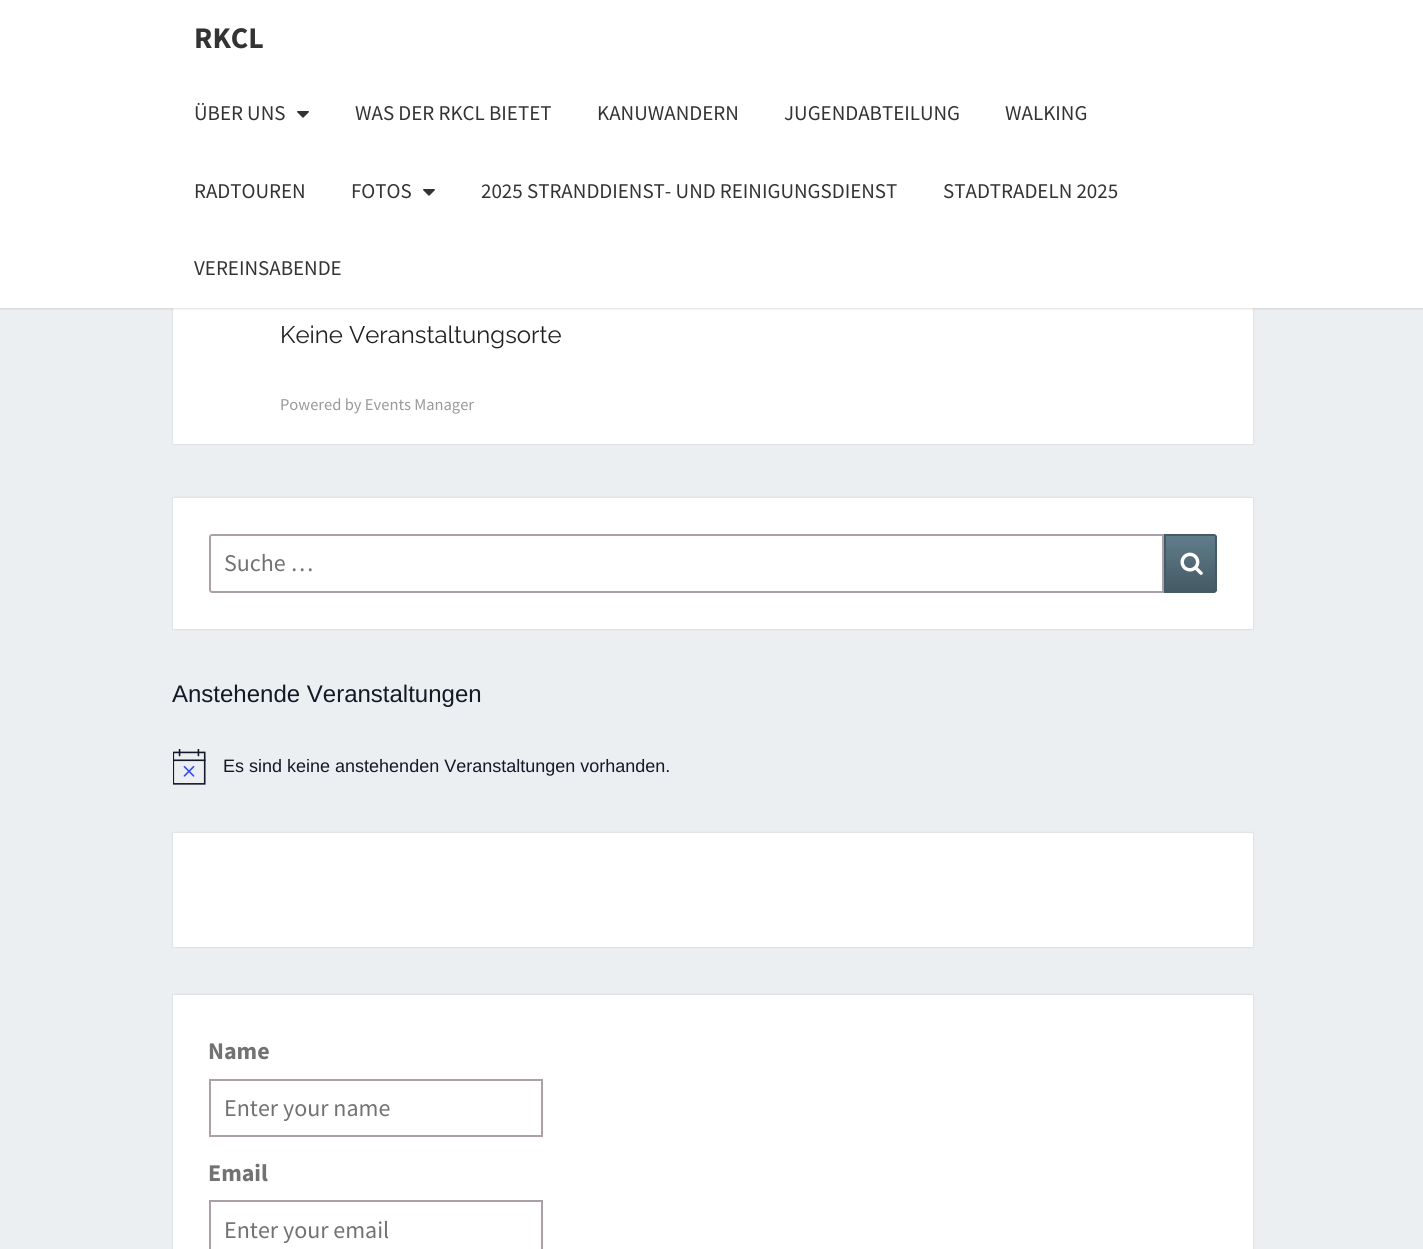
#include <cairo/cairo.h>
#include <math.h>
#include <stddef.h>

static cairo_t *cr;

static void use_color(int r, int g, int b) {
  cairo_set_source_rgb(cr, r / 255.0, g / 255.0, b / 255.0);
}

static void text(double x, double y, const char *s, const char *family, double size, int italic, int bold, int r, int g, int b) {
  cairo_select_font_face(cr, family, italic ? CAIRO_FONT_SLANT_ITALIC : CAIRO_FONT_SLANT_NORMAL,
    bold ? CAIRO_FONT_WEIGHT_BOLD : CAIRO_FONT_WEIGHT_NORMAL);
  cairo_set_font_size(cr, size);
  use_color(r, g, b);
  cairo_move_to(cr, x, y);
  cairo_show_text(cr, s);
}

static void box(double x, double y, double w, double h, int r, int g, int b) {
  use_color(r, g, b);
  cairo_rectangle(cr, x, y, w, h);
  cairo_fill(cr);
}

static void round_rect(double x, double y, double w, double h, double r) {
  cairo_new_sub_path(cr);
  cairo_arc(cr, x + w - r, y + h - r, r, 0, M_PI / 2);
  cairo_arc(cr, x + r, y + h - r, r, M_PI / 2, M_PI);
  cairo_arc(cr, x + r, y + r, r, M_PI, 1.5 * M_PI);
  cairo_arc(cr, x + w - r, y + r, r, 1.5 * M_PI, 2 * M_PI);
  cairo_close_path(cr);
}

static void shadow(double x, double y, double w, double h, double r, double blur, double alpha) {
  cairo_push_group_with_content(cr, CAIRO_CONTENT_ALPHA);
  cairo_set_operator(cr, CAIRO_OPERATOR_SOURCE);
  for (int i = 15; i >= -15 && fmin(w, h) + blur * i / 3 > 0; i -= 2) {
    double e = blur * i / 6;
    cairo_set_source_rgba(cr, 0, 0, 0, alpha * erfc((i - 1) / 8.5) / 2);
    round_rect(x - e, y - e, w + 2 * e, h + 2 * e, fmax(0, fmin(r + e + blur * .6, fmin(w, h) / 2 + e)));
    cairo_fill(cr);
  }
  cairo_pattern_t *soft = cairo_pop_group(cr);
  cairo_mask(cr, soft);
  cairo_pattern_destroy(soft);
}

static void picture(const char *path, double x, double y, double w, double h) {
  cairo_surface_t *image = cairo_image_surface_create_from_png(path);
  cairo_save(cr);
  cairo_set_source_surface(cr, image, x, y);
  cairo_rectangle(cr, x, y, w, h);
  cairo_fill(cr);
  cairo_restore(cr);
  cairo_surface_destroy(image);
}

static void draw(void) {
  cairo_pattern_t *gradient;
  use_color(236, 239, 241);
  cairo_paint(cr);
  use_color(0, 0, 0);
  shadow(173, -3, 1080, 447, 0, 1, 0.15);
  box(173, 308, 1080, 136, 255, 255, 255);
  use_color(100, 100, 100);
  shadow(0, 2, 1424, 307, 0, 1, 0.2);
  box(0, 0, 1423, 308, 255, 255, 255);
  picture("img_01.png", 297, 111, 12, 7);
  picture("img_01.png", 423, 189, 12, 7);
  use_color(0, 0, 0);
  shadow(173, 498, 1080, 131, 0, 1, 0.15);
  box(173, 498, 1080, 131, 255, 255, 255);
  cairo_new_path(cr);
  cairo_move_to(cr, 212, 535);
  cairo_line_to(cr, 1163, 535);
  cairo_line_to(cr, 1163, 592);
  cairo_line_to(cr, 212, 592);
  cairo_curve_to(cr, 211, 592, 210, 591, 210, 590);
  cairo_line_to(cr, 210, 537);
  cairo_curve_to(cr, 210, 536, 211, 535, 212, 535);
  cairo_close_path(cr);
  use_color(170, 161, 168);
  cairo_stroke(cr);
  gradient = cairo_pattern_create_linear(1190, 536, 1190, 591);
  cairo_pattern_add_color_stop_rgba(gradient, 0, 0.376, 0.49, 0.545, 1);
  cairo_pattern_add_color_stop_rgba(gradient, 1, 0.271, 0.353, 0.392, 1);
  cairo_set_source(cr, gradient);
  cairo_pattern_destroy(gradient);
  cairo_rectangle(cr, 1166, 536, 51, 55);
  cairo_fill(cr);
  cairo_new_path(cr);
  cairo_move_to(cr, 1165, 535);
  cairo_line_to(cr, 1214, 535);
  cairo_curve_to(cr, 1215, 535, 1216, 536, 1216, 537);
  cairo_line_to(cr, 1216, 590);
  cairo_curve_to(cr, 1216, 591, 1215, 592, 1214, 592);
  cairo_line_to(cr, 1165, 592);
  cairo_close_path(cr);
  use_color(69, 90, 100);
  cairo_stroke(cr);
  picture("img_02.png", 1180, 552, 23, 23);
  picture("img_03.png", 173, 749, 33, 36);
  use_color(0, 0, 0);
  shadow(173, 833, 1080, 114, 0, 1, 0.15);
  box(173, 833, 1080, 114, 255, 255, 255);
  use_color(0, 0, 0);
  shadow(173, 995, 1080, 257, 0, 1, 0.15);
  box(173, 995, 1080, 254, 255, 255, 255);
  cairo_rectangle(cr, 210, 1080, 332, 56);
  use_color(170, 161, 168);
  cairo_stroke(cr);
  cairo_rectangle(cr, 210, 1201, 332, 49);
  cairo_stroke(cr);
  text(194, 48, "RKCL", "Source Sans Pro", 30, 0, 1, 51, 51, 51);
  text(194, 120, "ÜBER UNS", "Source Sans Pro", 21, 0, 0, 51, 51, 51);
  text(355, 120, "WAS DER RKCL BIETET", "Source Sans Pro", 21, 0, 0, 51, 51, 51);
  text(597, 120, "KANUWANDERN", "Source Sans Pro", 21, 0, 0, 51, 51, 51);
  text(784, 120, "JUGENDABTEILUNG", "Source Sans Pro", 21, 0, 0, 51, 51, 51);
  text(1005, 120, "WALKING", "Source Sans Pro", 21, 0, 0, 51, 51, 51);
  text(194, 198, "RADTOUREN", "Source Sans Pro", 21, 0, 0, 51, 51, 51);
  text(351, 198, "FOTOS", "Source Sans Pro", 21, 0, 0, 51, 51, 51);
  text(481, 198, "2025 STRANDDIENST- UND REINIGUNGSDIENST", "Source Sans Pro", 21, 0, 0, 51, 51, 51);
  text(943, 198, "STADTRADELN 2025", "Source Sans Pro", 21, 0, 0, 51, 51, 51);
  text(194, 275, "VEREINSABENDE", "Source Sans Pro", 21, 0, 0, 51, 51, 51);
  text(280, 343, "Keine Veranstaltungsorte", "Raleway", 24, 0, 0, 33, 33, 33);
  text(280, 410, "Powered by Events Manager", "Source Sans Pro", 16.5, 0, 0, 153, 153, 153);
  text(224, 571, "Suche …", "Source Sans Pro", 24, 0, 0, 114, 114, 114);
  text(172, 702, "Anstehende Veranstaltungen", "Liberation Sans", 24, 0, 0, 20, 24, 39);
  text(223, 772, "Es sind keine anstehenden Veranstaltungen vorhanden.", "Liberation Sans", 18, 0, 0, 20, 24, 39);
  text(208, 1059, "Name", "Source Sans Pro", 24, 0, 1, 114, 114, 114);
  text(224, 1116, "Enter your name", "Source Sans Pro", 24, 0, 0, 114, 114, 114);
  text(208, 1181, "Email", "Source Sans Pro", 24, 0, 1, 114, 114, 114);
  text(224, 1238, "Enter your email", "Source Sans Pro", 24, 0, 0, 114, 114, 114);
}

int main(void) {
  cairo_surface_t *surface = cairo_image_surface_create(CAIRO_FORMAT_RGB24, 1423, 1249);
  cr = cairo_create(surface);
  cairo_font_options_t *options = cairo_font_options_create();
  cairo_font_options_set_hint_metrics(options, CAIRO_HINT_METRICS_OFF);
  cairo_font_options_set_hint_style(options, CAIRO_HINT_STYLE_NONE);
  cairo_set_font_options(cr, options);
  cairo_set_miter_limit(cr, 4);
  draw();
  cairo_surface_write_to_png(surface, "out.png");
  cairo_font_options_destroy(options);
  cairo_destroy(cr);
  cairo_surface_destroy(surface);
  return 0;
}
